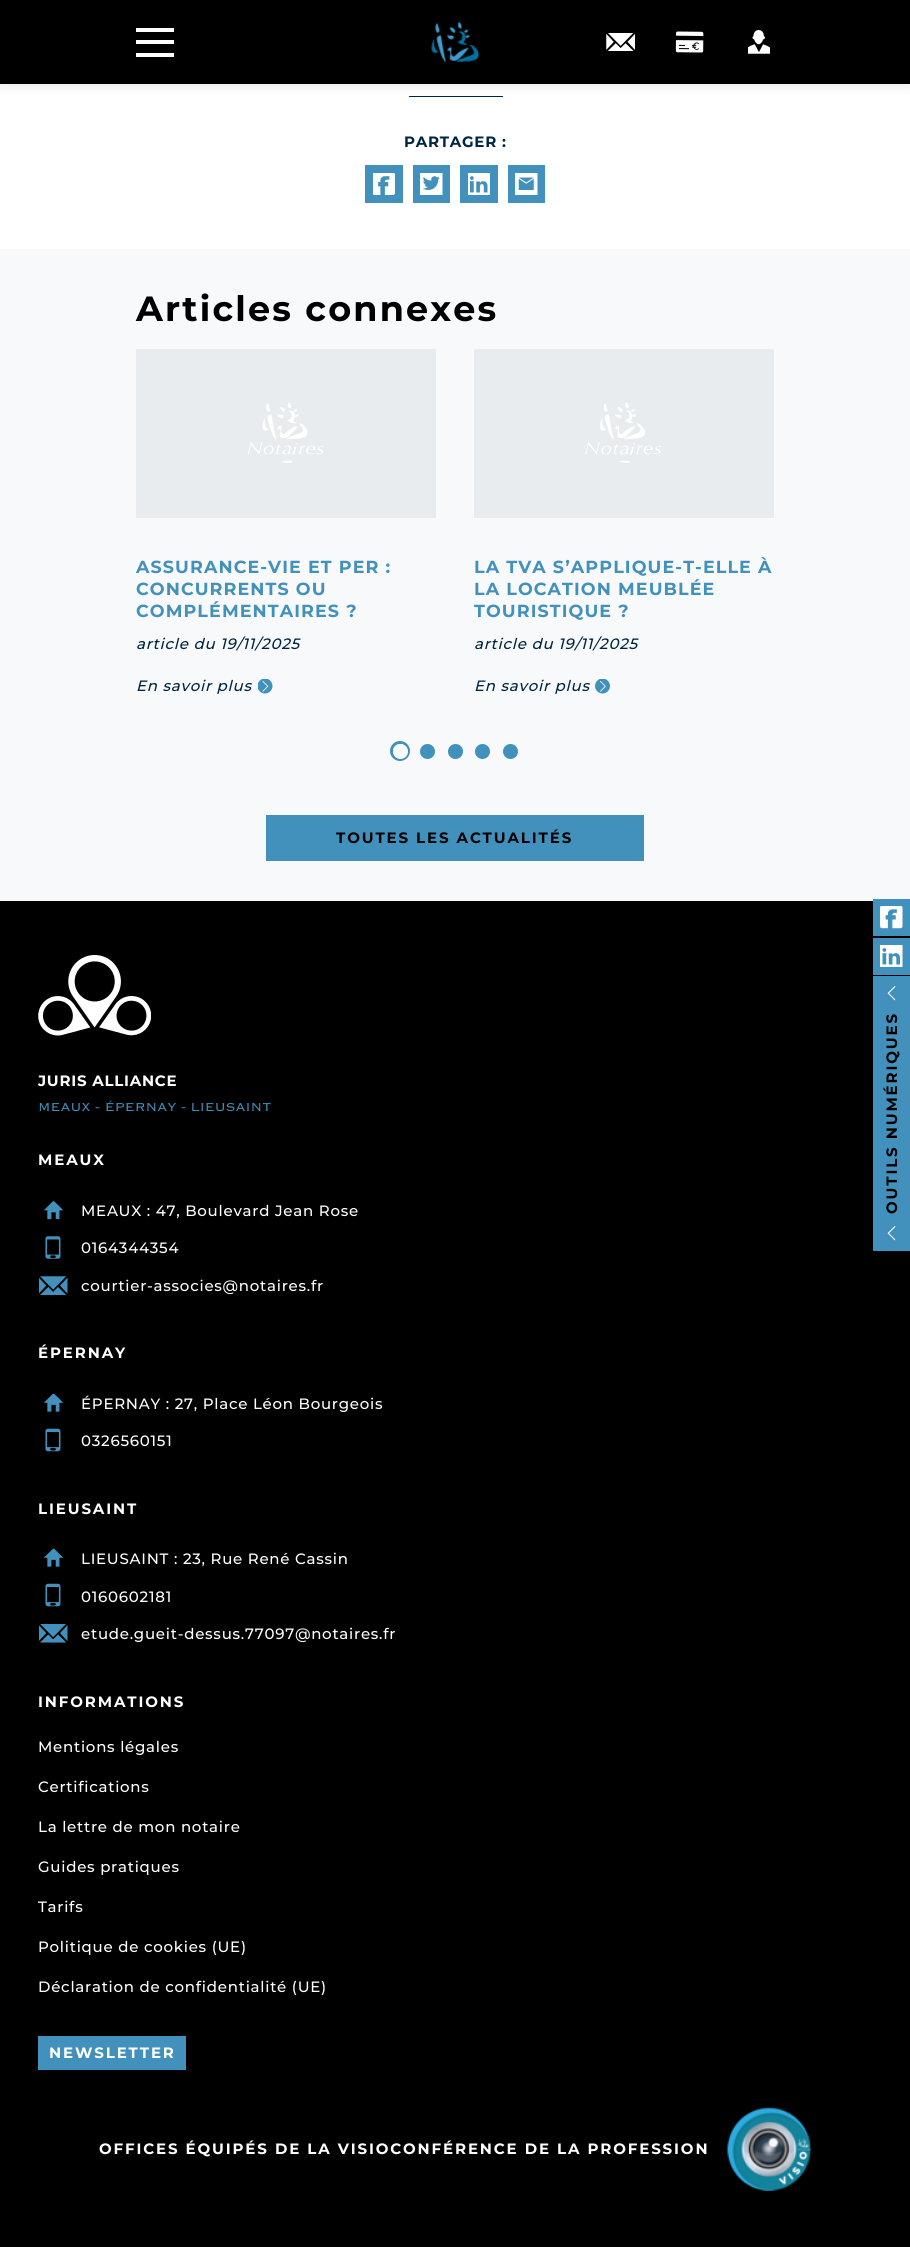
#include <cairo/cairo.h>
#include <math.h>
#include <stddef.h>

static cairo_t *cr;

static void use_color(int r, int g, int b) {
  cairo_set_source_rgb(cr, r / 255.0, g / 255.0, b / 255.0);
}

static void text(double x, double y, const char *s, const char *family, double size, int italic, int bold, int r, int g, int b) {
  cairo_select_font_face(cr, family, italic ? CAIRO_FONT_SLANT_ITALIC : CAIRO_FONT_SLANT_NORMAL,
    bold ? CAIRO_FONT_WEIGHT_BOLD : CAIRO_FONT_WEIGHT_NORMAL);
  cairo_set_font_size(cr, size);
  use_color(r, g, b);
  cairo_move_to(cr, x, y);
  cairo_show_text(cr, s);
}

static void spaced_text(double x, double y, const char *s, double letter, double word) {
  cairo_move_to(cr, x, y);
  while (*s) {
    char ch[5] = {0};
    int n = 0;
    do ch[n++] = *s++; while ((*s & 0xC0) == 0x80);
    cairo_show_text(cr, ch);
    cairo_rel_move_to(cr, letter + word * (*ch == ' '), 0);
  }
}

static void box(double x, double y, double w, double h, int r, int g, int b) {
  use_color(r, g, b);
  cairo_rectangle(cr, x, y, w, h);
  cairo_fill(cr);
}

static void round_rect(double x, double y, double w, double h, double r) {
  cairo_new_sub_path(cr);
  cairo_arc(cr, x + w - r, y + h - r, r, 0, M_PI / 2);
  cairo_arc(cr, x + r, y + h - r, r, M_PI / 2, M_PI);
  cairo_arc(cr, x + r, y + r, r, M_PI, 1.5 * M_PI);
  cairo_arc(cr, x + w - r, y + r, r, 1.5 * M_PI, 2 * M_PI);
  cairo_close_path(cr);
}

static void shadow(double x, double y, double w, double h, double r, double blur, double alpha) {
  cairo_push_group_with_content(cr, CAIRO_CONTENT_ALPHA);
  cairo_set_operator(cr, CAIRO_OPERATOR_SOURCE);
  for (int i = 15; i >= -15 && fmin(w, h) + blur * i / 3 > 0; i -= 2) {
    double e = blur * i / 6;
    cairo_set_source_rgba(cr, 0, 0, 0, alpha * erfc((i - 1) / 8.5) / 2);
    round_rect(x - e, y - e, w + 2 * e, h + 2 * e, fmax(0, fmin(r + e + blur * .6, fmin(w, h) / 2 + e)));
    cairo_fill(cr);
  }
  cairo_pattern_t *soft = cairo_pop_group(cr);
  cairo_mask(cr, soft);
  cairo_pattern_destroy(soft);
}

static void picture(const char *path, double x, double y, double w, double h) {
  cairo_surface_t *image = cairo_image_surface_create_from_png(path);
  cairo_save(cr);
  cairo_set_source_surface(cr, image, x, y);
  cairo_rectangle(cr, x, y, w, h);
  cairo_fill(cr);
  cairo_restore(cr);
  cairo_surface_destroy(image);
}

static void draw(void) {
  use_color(255, 255, 255);
  cairo_paint(cr);
  box(409, 96, 94, 1, 0, 37, 64);
  use_color(0, 37, 64);
  shadow(0, 3, 910, 83, 0, 5, 0.1);
  box(0, 0, 910, 84, 0, 0, 0);
  box(136, 28, 38, 4, 255, 255, 255);
  box(136, 40, 38, 4, 255, 255, 255);
  box(136, 53, 38, 4, 255, 255, 255);
  picture("img_01.png", 431, 21, 49, 41);
  picture("img_02.png", 606, 33, 29, 18);
  picture("img_03.png", 675, 31, 29, 22);
  picture("img_04.png", 748, 30, 22, 24);
  box(365, 165, 38, 38, 66, 145, 189);
  picture("img_05.png", 373, 173, 22, 22);
  box(413, 165, 37, 38, 66, 145, 189);
  picture("img_06.png", 420, 173, 23, 22);
  box(460, 165, 38, 38, 66, 145, 189);
  picture("img_07.png", 468, 173, 22, 22);
  box(508, 165, 37, 38, 66, 145, 189);
  picture("img_08.png", 515, 173, 23, 22);
  box(0, 249, 910, 652, 248, 249, 250);
  box(136, 349, 300, 169, 232, 236, 239);
  picture("img_09.png", 248, 403, 76, 60);
  picture("img_10.png", 258, 679, 15, 15);
  box(474, 349, 300, 169, 232, 236, 239);
  picture("img_11.png", 585, 403, 76, 60);
  picture("img_12.png", 595, 679, 15, 15);
  cairo_arc(cr, 400, 751, 8.5, 0, 2 * M_PI);
  use_color(66, 145, 189);
  cairo_set_line_width(cr, 3);
  cairo_stroke(cr);
  use_color(255, 255, 255);
  cairo_arc(cr, 400.5, 751.5, 7.5, 0, 2 * M_PI);
  cairo_fill(cr);
  use_color(66, 145, 189);
  cairo_arc(cr, 427.5, 751.5, 7.5, 0, 2 * M_PI);
  cairo_fill(cr);
  cairo_arc(cr, 455.5, 751.5, 7.5, 0, 2 * M_PI);
  cairo_fill(cr);
  cairo_arc(cr, 482.5, 751.5, 7.5, 0, 2 * M_PI);
  cairo_fill(cr);
  cairo_arc(cr, 510.5, 751.5, 7.5, 0, 2 * M_PI);
  cairo_fill(cr);
  box(266, 815, 378, 46, 66, 145, 189);
  box(0, 901, 910, 1346, 0, 0, 0);
  picture("img_13.png", 38, 955, 113, 81);
  picture("img_14.png", 43, 1201, 21, 19);
  picture("img_15.png", 45, 1236, 16, 23);
  picture("img_16.png", 39, 1276, 29, 19);
  picture("img_17.png", 43, 1393, 21, 19);
  picture("img_18.png", 45, 1428, 16, 24);
  picture("img_17.png", 43, 1548, 21, 19);
  picture("img_18.png", 45, 1583, 16, 24);
  picture("img_19.png", 39, 1624, 29, 19);
  box(38, 2036, 148, 34, 66, 145, 189);
  picture("img_20.png", 727, 2107, 85, 84);
  box(873, 899, 37, 37, 66, 145, 189);
  picture("img_21.png", 880, 906, 23, 23);
  box(873, 938, 37, 37, 66, 145, 189);
  picture("img_22.png", 880, 945, 23, 22);
  box(873, 976, 37, 275, 66, 145, 189);
  picture("img_23.png", 887, 986, 9, 15);
  picture("img_24.png", 887, 1226, 9, 15);
  cairo_select_font_face(cr, "Montserrat", CAIRO_FONT_SLANT_NORMAL, CAIRO_FONT_WEIGHT_BOLD);
  cairo_set_font_size(cr, 15);
  use_color(0, 37, 64);
  spaced_text(404, 147, "PARTAGER :", 0.75, 0);
  cairo_set_font_size(cr, 35);
  use_color(0, 0, 0);
  spaced_text(136, 321, "Articles connexes", 2.2, 0);
  cairo_set_font_size(cr, 17.5);
  use_color(66, 145, 189);
  spaced_text(136, 573, "ASSURANCE-VIE ET PER :", 1.1, 0);
  spaced_text(136, 595, "CONCURRENTS OU", 1.1, 0);
  spaced_text(136, 617, "COMPLÉMENTAIRES ?", 1.1, 0);
  cairo_select_font_face(cr, "Montserrat Medium", CAIRO_FONT_SLANT_ITALIC, CAIRO_FONT_WEIGHT_NORMAL);
  cairo_set_font_size(cr, 15);
  use_color(0, 37, 64);
  spaced_text(136, 649, "article du 19/11/2025", 0.75, 0);
  spaced_text(136, 691, "En savoir plus", 0.75, 0);
  cairo_select_font_face(cr, "Montserrat", CAIRO_FONT_SLANT_NORMAL, CAIRO_FONT_WEIGHT_BOLD);
  cairo_set_font_size(cr, 17.5);
  use_color(66, 145, 189);
  spaced_text(474, 573, "LA TVA S’APPLIQUE-T-ELLE À", 1.1, 0);
  spaced_text(474, 595, "LA LOCATION MEUBLÉE", 1.1, 0);
  spaced_text(474, 617, "TOURISTIQUE ?", 1.1, 0);
  cairo_select_font_face(cr, "Montserrat Medium", CAIRO_FONT_SLANT_ITALIC, CAIRO_FONT_WEIGHT_NORMAL);
  cairo_set_font_size(cr, 15);
  use_color(0, 37, 64);
  spaced_text(474, 649, "article du 19/11/2025", 0.75, 0);
  spaced_text(474, 691, "En savoir plus", 0.75, 0);
  cairo_select_font_face(cr, "Montserrat", CAIRO_FONT_SLANT_NORMAL, CAIRO_FONT_WEIGHT_BOLD);
  use_color(0, 0, 0);
  spaced_text(336, 843, "TOUTES LES ACTUALITÉS", 1.88, 0);
  use_color(255, 255, 255);
  spaced_text(38, 1086, "JURIS ALLIANCE", 0.75, 0);
  text(38, 1111, "MEAUX - ÉPERNAY - LIEUSAINT", "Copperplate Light", 15, 0, 0, 66, 145, 189);
  cairo_select_font_face(cr, "Montserrat", CAIRO_FONT_SLANT_NORMAL, CAIRO_FONT_WEIGHT_BOLD);
  use_color(255, 255, 255);
  spaced_text(38, 1165, "MEAUX", 1.88, 0);
  cairo_select_font_face(cr, "Montserrat Medium", CAIRO_FONT_SLANT_NORMAL, CAIRO_FONT_WEIGHT_NORMAL);
  spaced_text(81, 1216, "MEAUX : 47, Boulevard Jean Rose", 0.75, 0);
  spaced_text(81, 1253, "0164344354", 0.75, 0);
  spaced_text(81, 1291, "courtier-associes@notaires.fr", 0.75, 0);
  cairo_select_font_face(cr, "Montserrat", CAIRO_FONT_SLANT_NORMAL, CAIRO_FONT_WEIGHT_BOLD);
  spaced_text(38, 1358, "ÉPERNAY", 1.88, 0);
  cairo_select_font_face(cr, "Montserrat Medium", CAIRO_FONT_SLANT_NORMAL, CAIRO_FONT_WEIGHT_NORMAL);
  spaced_text(81, 1409, "ÉPERNAY : 27, Place Léon Bourgeois", 0.75, 0);
  spaced_text(81, 1446, "0326560151", 0.75, 0);
  cairo_select_font_face(cr, "Montserrat", CAIRO_FONT_SLANT_NORMAL, CAIRO_FONT_WEIGHT_BOLD);
  spaced_text(38, 1514, "LIEUSAINT", 1.88, 0);
  cairo_select_font_face(cr, "Montserrat Medium", CAIRO_FONT_SLANT_NORMAL, CAIRO_FONT_WEIGHT_NORMAL);
  spaced_text(81, 1564, "LIEUSAINT : 23, Rue René Cassin", 0.75, 0);
  spaced_text(81, 1602, "0160602181", 0.75, 0);
  spaced_text(81, 1639, "etude.gueit-dessus.77097@notaires.fr", 0.75, 0);
  cairo_select_font_face(cr, "Montserrat", CAIRO_FONT_SLANT_NORMAL, CAIRO_FONT_WEIGHT_BOLD);
  spaced_text(38, 1707, "INFORMATIONS", 1.88, 0);
  cairo_select_font_face(cr, "Montserrat Medium", CAIRO_FONT_SLANT_NORMAL, CAIRO_FONT_WEIGHT_NORMAL);
  spaced_text(38, 1752, "Mentions légales", 0.75, 0);
  spaced_text(38, 1792, "Certifications", 0.75, 0);
  spaced_text(38, 1832, "La lettre de mon notaire", 0.75, 0);
  spaced_text(38, 1872, "Guides pratiques", 0.75, 0);
  spaced_text(38, 1912, "Tarifs", 0.75, 0);
  spaced_text(38, 1952, "Politique de cookies (UE)", 0.75, 0);
  spaced_text(38, 1992, "Déclaration de confidentialité (UE)", 0.75, 0);
  cairo_select_font_face(cr, "Montserrat", CAIRO_FONT_SLANT_NORMAL, CAIRO_FONT_WEIGHT_BOLD);
  spaced_text(49, 2058, "NEWSLETTER", 1.88, 0);
  spaced_text(99, 2154, "OFFICES ÉQUIPÉS DE LA VISIOCONFÉRENCE DE LA PROFESSION", 1.88, 0);
  use_color(0, 0, 0);
  cairo_save(cr);
  cairo_translate(cr, 897, 1214);
  cairo_rotate(cr, -90 * M_PI / 180);
  spaced_text(0, 0, "OUTILS NUMÉRIQUES", 1.88, 0);
  cairo_restore(cr);
}

int main(void) {
  cairo_surface_t *surface = cairo_image_surface_create(CAIRO_FORMAT_RGB24, 910, 2247);
  cr = cairo_create(surface);
  cairo_font_options_t *options = cairo_font_options_create();
  cairo_font_options_set_hint_metrics(options, CAIRO_HINT_METRICS_OFF);
  cairo_font_options_set_hint_style(options, CAIRO_HINT_STYLE_NONE);
  cairo_set_font_options(cr, options);
  cairo_set_miter_limit(cr, 4);
  draw();
  cairo_surface_write_to_png(surface, "out.png");
  cairo_font_options_destroy(options);
  cairo_destroy(cr);
  cairo_surface_destroy(surface);
  return 0;
}
